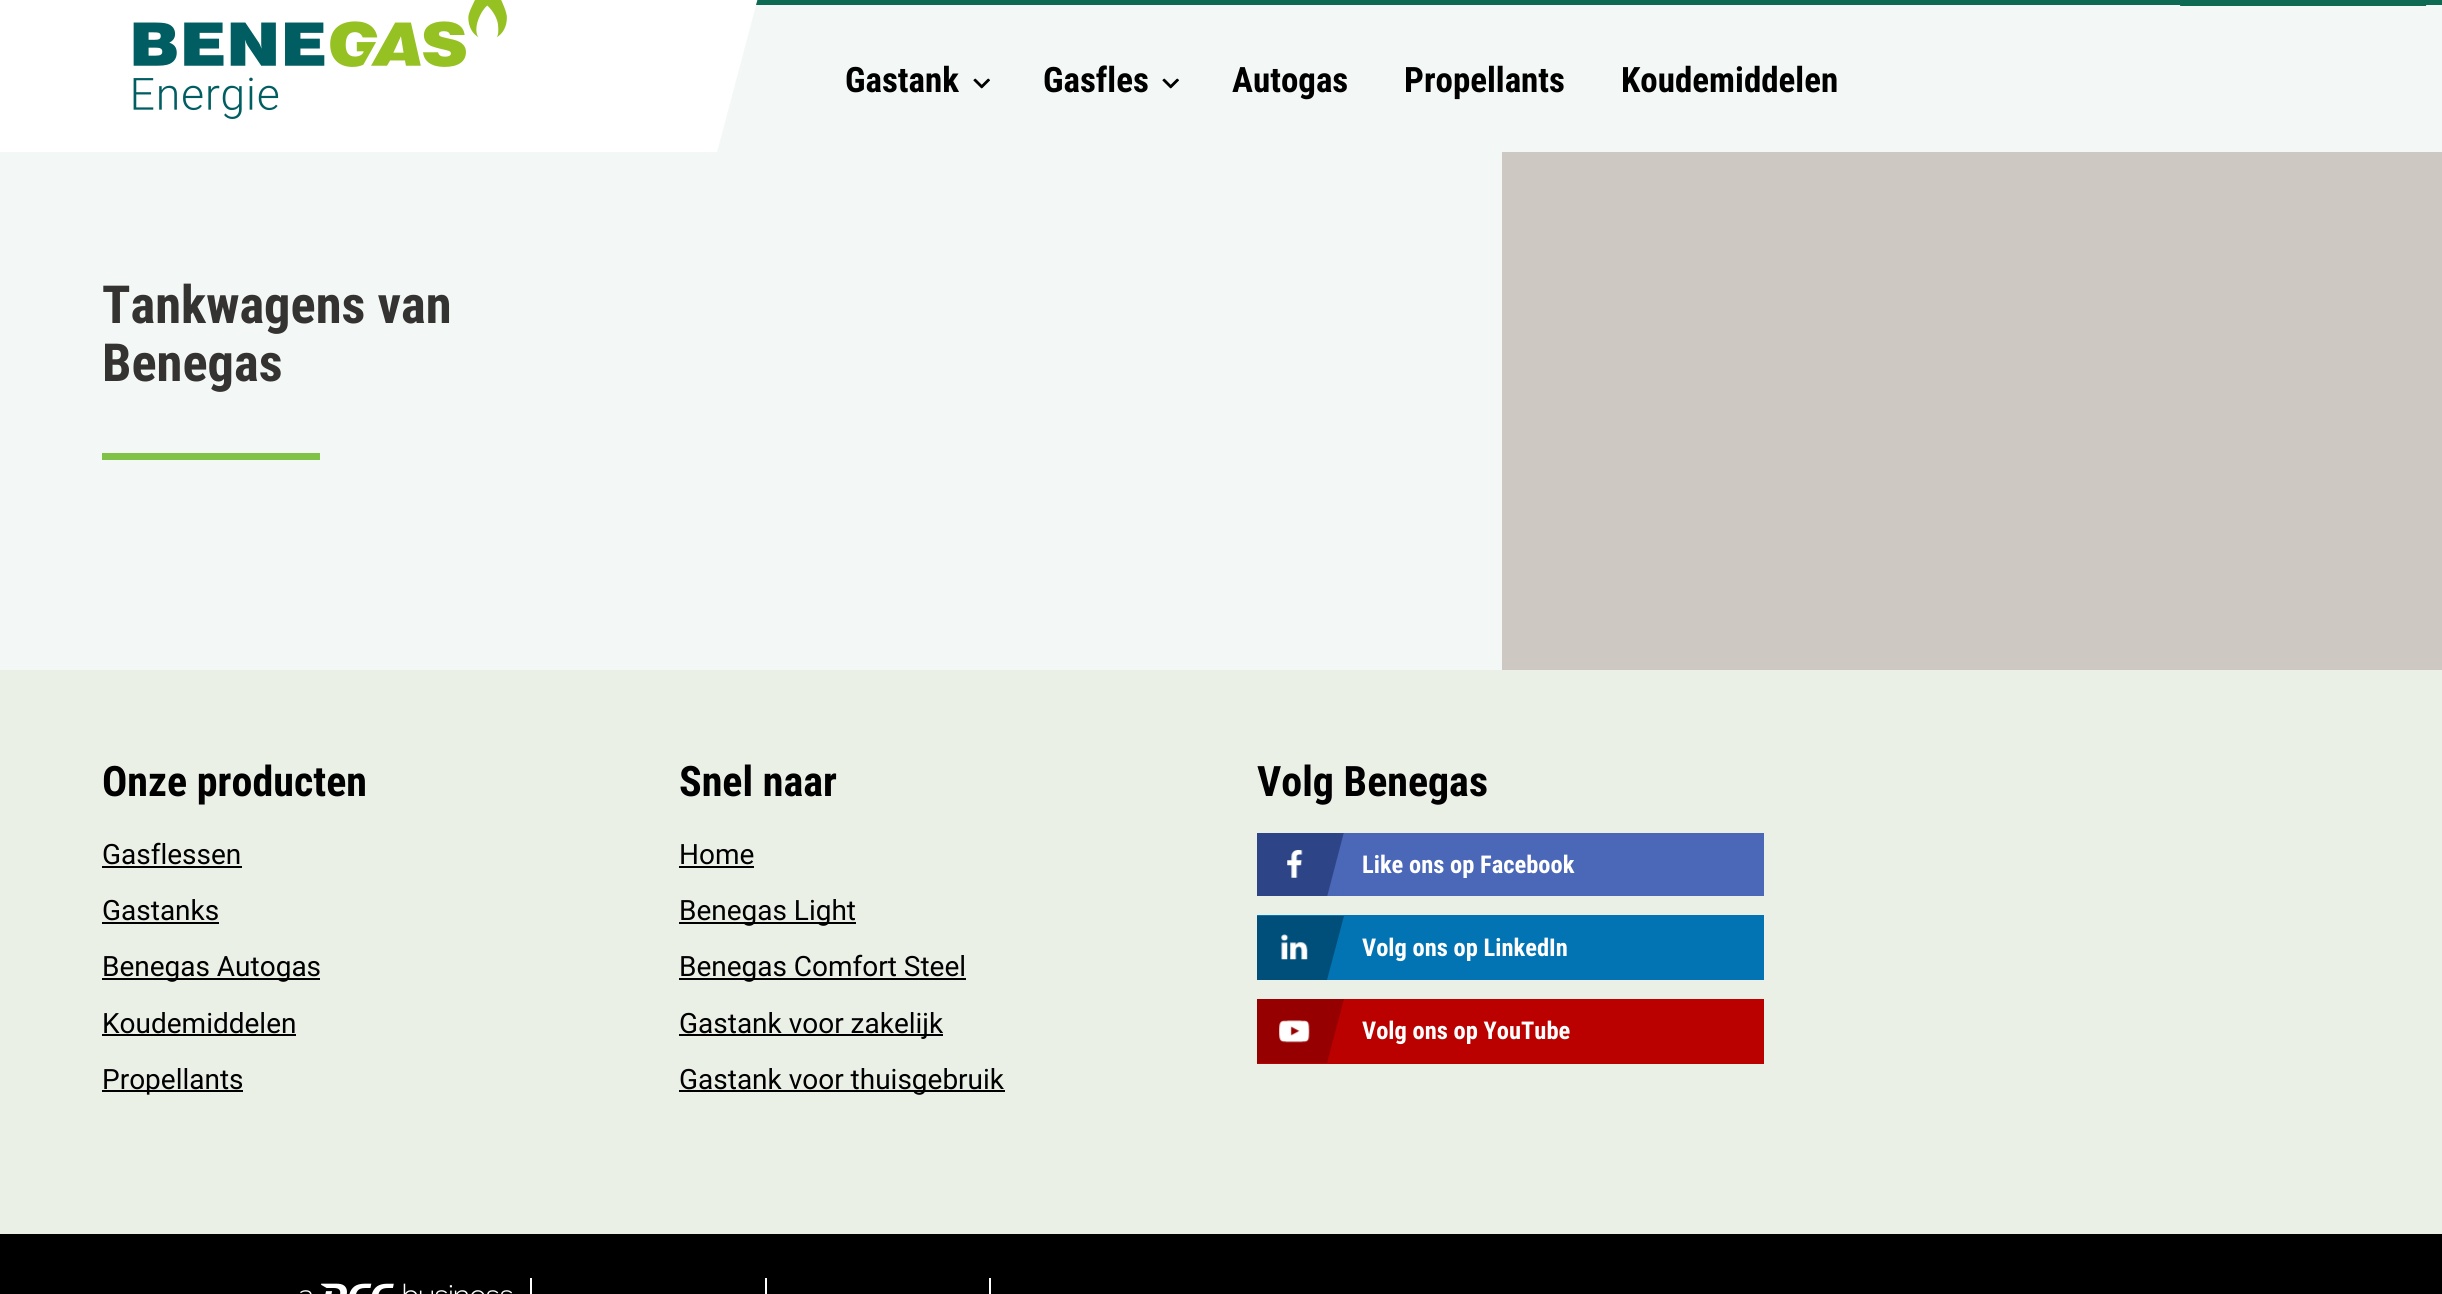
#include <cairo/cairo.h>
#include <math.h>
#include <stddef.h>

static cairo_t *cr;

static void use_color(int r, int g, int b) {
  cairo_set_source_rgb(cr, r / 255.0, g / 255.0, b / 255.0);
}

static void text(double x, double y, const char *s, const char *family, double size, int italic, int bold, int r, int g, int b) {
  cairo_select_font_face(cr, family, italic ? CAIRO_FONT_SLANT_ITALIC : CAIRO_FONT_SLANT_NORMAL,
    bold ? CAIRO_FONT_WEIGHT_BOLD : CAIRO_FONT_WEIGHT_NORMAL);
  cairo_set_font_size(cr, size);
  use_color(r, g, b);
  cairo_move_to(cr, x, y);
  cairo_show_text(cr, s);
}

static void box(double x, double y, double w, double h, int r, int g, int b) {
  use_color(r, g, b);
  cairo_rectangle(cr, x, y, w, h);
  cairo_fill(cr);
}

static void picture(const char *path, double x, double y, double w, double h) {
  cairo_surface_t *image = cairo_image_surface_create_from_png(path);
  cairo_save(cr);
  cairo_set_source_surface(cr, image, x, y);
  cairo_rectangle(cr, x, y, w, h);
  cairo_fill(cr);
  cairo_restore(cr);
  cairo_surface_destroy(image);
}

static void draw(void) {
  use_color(255, 255, 255);
  cairo_paint(cr);
  picture("img_01.png", 133, 0, 374, 119);
  box(809, 0, 1633, 5, 15, 106, 84);
  cairo_new_path(cr);
  cairo_move_to(cr, 774, -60);
  cairo_line_to(cr, 826, -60);
  cairo_line_to(cr, 809, 5);
  cairo_line_to(cr, 756, 5);
  cairo_close_path(cr);
  cairo_fill(cr);
  cairo_new_path(cr);
  cairo_move_to(cr, 2007, -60);
  cairo_line_to(cr, 2197, -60);
  cairo_line_to(cr, 2180, 6);
  cairo_line_to(cr, 1990, 6);
  cairo_close_path(cr);
  cairo_fill(cr);
  use_color(243, 248, 246);
  cairo_new_path(cr);
  cairo_move_to(cr, 756, 5);
  cairo_line_to(cr, 931, 5);
  cairo_line_to(cr, 892, 152);
  cairo_line_to(cr, 717, 152);
  cairo_close_path(cr);
  cairo_fill(cr);
  box(892, 5, 1450, 147, 243, 248, 246);
  box(2342, 5, 100, 147, 243, 248, 246);
  use_color(15, 106, 84);
  cairo_new_path(cr);
  cairo_move_to(cr, 2197, -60);
  cairo_line_to(cr, 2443, -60);
  cairo_line_to(cr, 2426, 6);
  cairo_line_to(cr, 2180, 6);
  cairo_close_path(cr);
  cairo_fill(cr);
  picture("img_02.png", 973, 78, 17, 11);
  picture("img_02.png", 1162, 78, 17, 11);
  box(0, 152, 1502, 518, 243, 248, 246);
  box(102, 453, 218, 7, 128, 193, 72);
  box(1502, 152, 940, 518, 205, 200, 193);
  box(0, 670, 2442, 564, 235, 240, 230);
  box(102, 866, 140, 2, 0, 0, 0);
  box(102, 922, 117, 2, 0, 0, 0);
  box(102, 978, 218, 2, 0, 0, 0);
  box(102, 1034, 194, 2, 0, 0, 0);
  box(102, 1090, 141, 2, 0, 0, 0);
  box(679, 866, 75, 2, 0, 0, 0);
  box(679, 922, 177, 2, 0, 0, 0);
  box(679, 978, 287, 2, 0, 0, 0);
  box(679, 1034, 264, 2, 0, 0, 0);
  box(679, 1090, 326, 2, 0, 0, 0);
  box(1327, 833, 437, 63, 74, 103, 184);
  cairo_save(cr);
  cairo_rectangle(cr, 1257, 833, 507, 63);
  cairo_clip(cr);
  use_color(45, 69, 135);
  cairo_new_path(cr);
  cairo_move_to(cr, 1256, 832);
  cairo_line_to(cr, 1344, 832);
  cairo_line_to(cr, 1327, 897);
  cairo_line_to(cr, 1239, 897);
  cairo_close_path(cr);
  cairo_fill(cr);
  cairo_restore(cr);
  picture("img_03.png", 1287, 850, 16, 28);
  box(1257, 915, 507, 65, 2, 116, 179);
  cairo_save(cr);
  cairo_rectangle(cr, 1257, 915, 507, 65);
  cairo_clip(cr);
  use_color(0, 78, 122);
  cairo_new_path(cr);
  cairo_move_to(cr, 1256, 916);
  cairo_line_to(cr, 1344, 916);
  cairo_line_to(cr, 1327, 980);
  cairo_line_to(cr, 1239, 980);
  cairo_close_path(cr);
  cairo_fill(cr);
  cairo_restore(cr);
  picture("img_04.png", 1281, 934, 27, 26);
  box(1257, 999, 507, 65, 187, 0, 0);
  cairo_save(cr);
  cairo_rectangle(cr, 1257, 999, 507, 65);
  cairo_clip(cr);
  use_color(150, 0, 0);
  cairo_new_path(cr);
  cairo_move_to(cr, 1256, 999);
  cairo_line_to(cr, 1344, 999);
  cairo_line_to(cr, 1327, 1063);
  cairo_line_to(cr, 1239, 1063);
  cairo_close_path(cr);
  cairo_fill(cr);
  cairo_restore(cr);
  picture("img_05.png", 1279, 1020, 31, 23);
  box(0, 1234, 2442, 60, 0, 0, 0);
  picture("img_06.png", 300, 1283, 212, 11);
  box(530, 1278, 2, 16, 255, 255, 255);
  box(765, 1278, 2, 16, 255, 255, 255);
  box(989, 1278, 2, 16, 255, 255, 255);
  text(845, 92, "Gastank", "Roboto Condensed", 35, 0, 1, 0, 0, 0);
  text(1043, 92, "Gasfles", "Roboto Condensed", 35, 0, 1, 0, 0, 0);
  text(1232, 92, "Autogas", "Roboto Condensed", 35, 0, 1, 0, 0, 0);
  text(1404, 92, "Propellants", "Roboto Condensed", 35, 0, 1, 0, 0, 0);
  text(1621, 92, "Koudemiddelen", "Roboto Condensed", 35, 0, 1, 0, 0, 0);
  text(102, 323, "Tankwagens van", "Roboto Condensed", 52.5, 0, 1, 52, 51, 49);
  text(102, 381, "Benegas", "Roboto Condensed", 52.5, 0, 1, 52, 51, 49);
  text(102, 796, "Onze producten", "Roboto Condensed", 42, 0, 1, 0, 0, 0);
  text(102, 864, "Gasflessen", "Roboto", 28, 0, 0, 0, 0, 0);
  text(102, 920, "Gastanks", "Roboto", 28, 0, 0, 0, 0, 0);
  text(102, 976, "Benegas Autogas", "Roboto", 28, 0, 0, 0, 0, 0);
  text(102, 1033, "Koudemiddelen", "Roboto", 28, 0, 0, 0, 0, 0);
  text(102, 1089, "Propellants", "Roboto", 28, 0, 0, 0, 0, 0);
  text(679, 796, "Snel naar", "Roboto Condensed", 42, 0, 1, 0, 0, 0);
  text(679, 864, "Home", "Roboto", 28, 0, 0, 0, 0, 0);
  text(679, 920, "Benegas Light", "Roboto", 28, 0, 0, 0, 0, 0);
  text(679, 976, "Benegas Comfort Steel", "Roboto", 28, 0, 0, 0, 0, 0);
  text(679, 1033, "Gastank voor zakelijk", "Roboto", 28, 0, 0, 0, 0, 0);
  text(679, 1089, "Gastank voor thuisgebruik", "Roboto", 28, 0, 0, 0, 0, 0);
  text(1257, 796, "Volg Benegas", "Roboto Condensed", 42, 0, 1, 0, 0, 0);
  text(1362, 873, "Like ons op Facebook", "Roboto Condensed", 24.5, 0, 1, 255, 255, 255);
  text(1362, 956, "Volg ons op LinkedIn", "Roboto Condensed", 24.5, 0, 1, 255, 255, 255);
  text(1362, 1039, "Volg ons op YouTube", "Roboto Condensed", 24.5, 0, 1, 255, 255, 255);
}

int main(void) {
  cairo_surface_t *surface = cairo_image_surface_create(CAIRO_FORMAT_RGB24, 2442, 1294);
  cr = cairo_create(surface);
  cairo_font_options_t *options = cairo_font_options_create();
  cairo_font_options_set_hint_metrics(options, CAIRO_HINT_METRICS_OFF);
  cairo_font_options_set_hint_style(options, CAIRO_HINT_STYLE_NONE);
  cairo_set_font_options(cr, options);
  cairo_set_miter_limit(cr, 4);
  draw();
  cairo_surface_write_to_png(surface, "out.png");
  cairo_font_options_destroy(options);
  cairo_destroy(cr);
  cairo_surface_destroy(surface);
  return 0;
}
